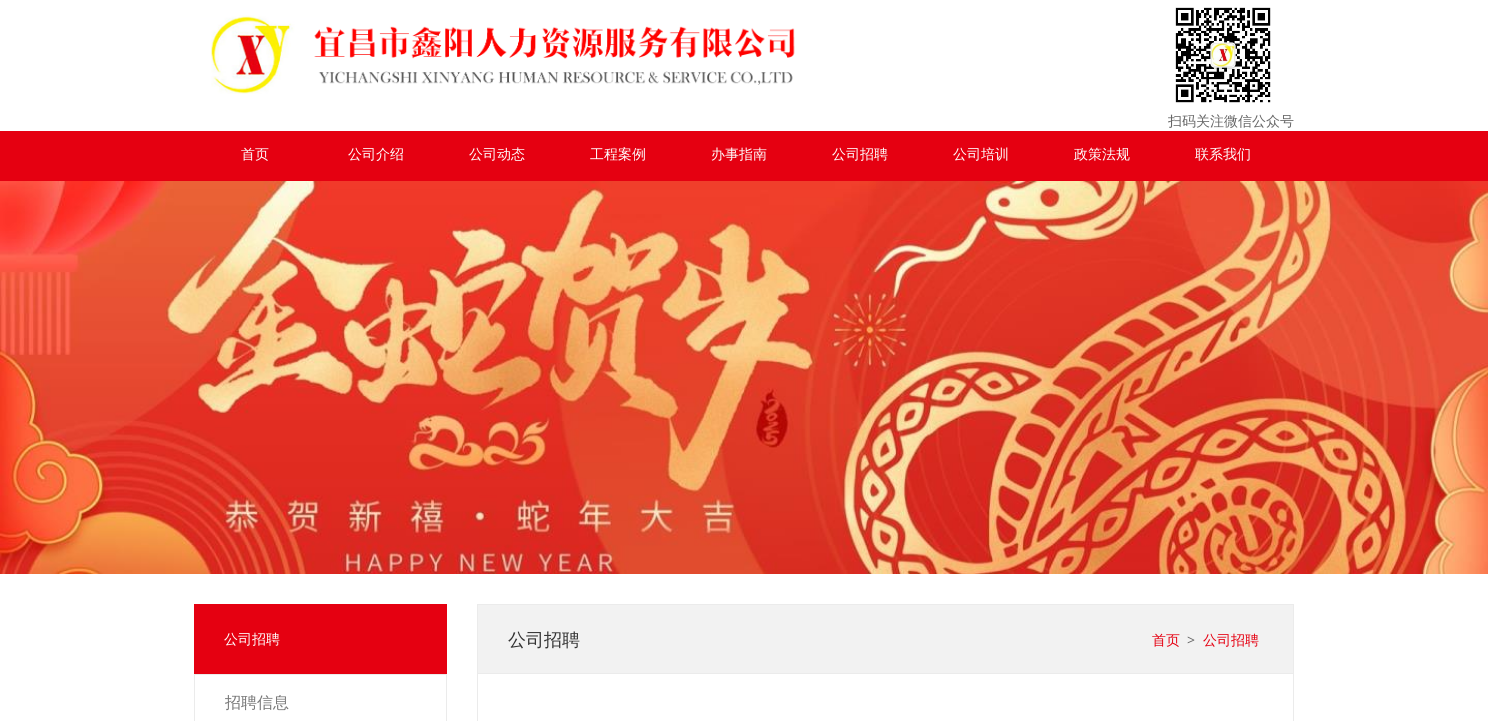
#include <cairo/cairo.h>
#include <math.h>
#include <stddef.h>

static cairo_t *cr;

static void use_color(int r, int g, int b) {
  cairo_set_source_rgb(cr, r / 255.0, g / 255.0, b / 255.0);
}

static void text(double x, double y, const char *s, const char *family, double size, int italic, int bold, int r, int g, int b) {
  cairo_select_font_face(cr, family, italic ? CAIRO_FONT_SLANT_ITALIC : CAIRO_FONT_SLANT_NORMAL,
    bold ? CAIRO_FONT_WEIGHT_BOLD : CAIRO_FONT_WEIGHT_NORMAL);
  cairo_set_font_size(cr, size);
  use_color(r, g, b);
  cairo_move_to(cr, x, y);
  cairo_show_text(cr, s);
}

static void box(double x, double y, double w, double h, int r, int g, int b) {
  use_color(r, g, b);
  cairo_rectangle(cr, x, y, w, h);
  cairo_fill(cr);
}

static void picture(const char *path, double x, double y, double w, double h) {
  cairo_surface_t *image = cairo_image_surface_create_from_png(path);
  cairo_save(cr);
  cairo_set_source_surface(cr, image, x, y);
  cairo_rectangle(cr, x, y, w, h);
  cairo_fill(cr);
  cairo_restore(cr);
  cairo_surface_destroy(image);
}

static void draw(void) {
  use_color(255, 255, 255);
  cairo_paint(cr);
  picture("img_01.png", 211, 15, 584, 79);
  picture("img_02.png", 1175, 7, 96, 96);
  box(0, 131, 1488, 50, 229, 0, 17);
  picture("img_03.png", 0, 181, 1488, 393);
  box(194, 604, 253, 70, 229, 0, 17);
  cairo_rectangle(cr, 194.5, 674.5, 252, 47);
  use_color(235, 235, 235);
  cairo_set_line_width(cr, 1);
  cairo_stroke(cr);
  cairo_rectangle(cr, 477.5, 604.5, 816, 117);
  cairo_stroke(cr);
  box(478, 605, 815, 68, 242, 242, 242);
  box(478, 673, 815, 1, 235, 235, 235);
  text(1168, 126, "扫码关注微信公众号", "WenQuanYi Zen Hei Medium", 14, 0, 0, 102, 102, 102);
  text(241, 159, "首页", "WenQuanYi Zen Hei Medium", 14, 0, 0, 255, 255, 255);
  text(348, 159, "公司介绍", "WenQuanYi Zen Hei Medium", 14, 0, 0, 255, 255, 255);
  text(469, 159, "公司动态", "WenQuanYi Zen Hei Medium", 14, 0, 0, 255, 255, 255);
  text(590, 159, "工程案例", "WenQuanYi Zen Hei Medium", 14, 0, 0, 255, 255, 255);
  text(711, 159, "办事指南", "WenQuanYi Zen Hei Medium", 14, 0, 0, 255, 255, 255);
  text(832, 159, "公司招聘", "WenQuanYi Zen Hei Medium", 14, 0, 0, 255, 255, 255);
  text(953, 159, "公司培训", "WenQuanYi Zen Hei Medium", 14, 0, 0, 255, 255, 255);
  text(1074, 159, "政策法规", "WenQuanYi Zen Hei Medium", 14, 0, 0, 255, 255, 255);
  text(1195, 159, "联系我们", "WenQuanYi Zen Hei Medium", 14, 0, 0, 255, 255, 255);
  text(224, 644, "公司招聘", "WenQuanYi Zen Hei Medium", 14, 0, 0, 255, 255, 255);
  text(225, 708, "招聘信息", "WenQuanYi Zen Hei Medium", 16, 0, 0, 119, 119, 119);
  text(508, 646, "公司招聘", "WenQuanYi Zen Hei Medium", 18, 0, 0, 51, 51, 51);
  text(1152, 645, "首页", "WenQuanYi Zen Hei Medium", 14, 0, 0, 229, 0, 17);
  text(1187, 645, ">", "Open Sans", 14, 0, 0, 102, 102, 102);
  text(1203, 645, "公司招聘", "WenQuanYi Zen Hei Medium", 14, 0, 0, 229, 0, 17);
}

int main(void) {
  cairo_surface_t *surface = cairo_image_surface_create(CAIRO_FORMAT_RGB24, 1488, 721);
  cr = cairo_create(surface);
  cairo_font_options_t *options = cairo_font_options_create();
  cairo_font_options_set_hint_metrics(options, CAIRO_HINT_METRICS_OFF);
  cairo_font_options_set_hint_style(options, CAIRO_HINT_STYLE_NONE);
  cairo_set_font_options(cr, options);
  cairo_set_miter_limit(cr, 4);
  draw();
  cairo_surface_write_to_png(surface, "out.png");
  cairo_font_options_destroy(options);
  cairo_destroy(cr);
  cairo_surface_destroy(surface);
  return 0;
}
